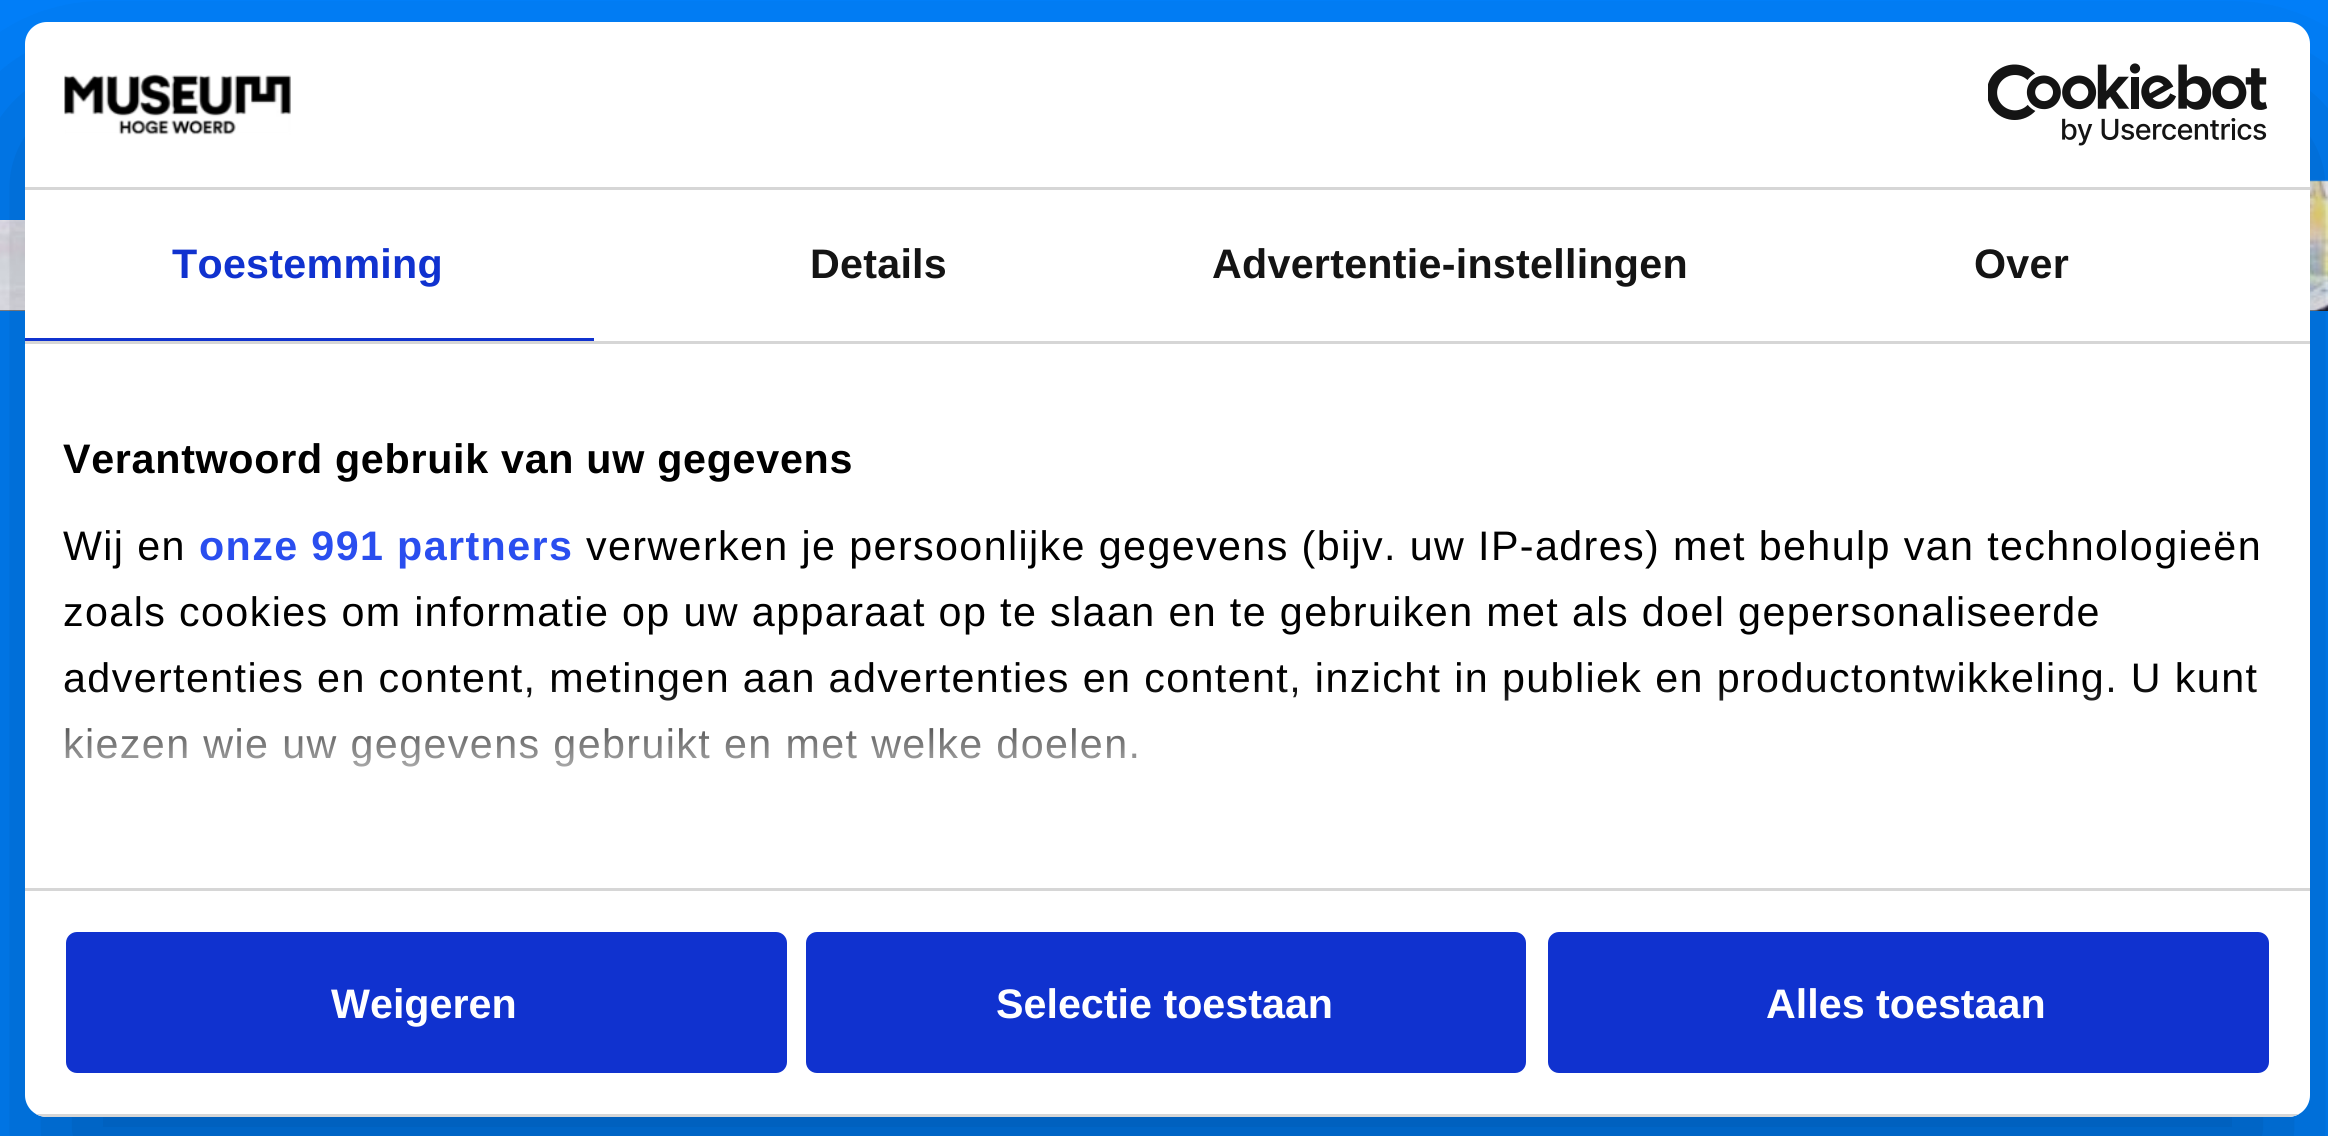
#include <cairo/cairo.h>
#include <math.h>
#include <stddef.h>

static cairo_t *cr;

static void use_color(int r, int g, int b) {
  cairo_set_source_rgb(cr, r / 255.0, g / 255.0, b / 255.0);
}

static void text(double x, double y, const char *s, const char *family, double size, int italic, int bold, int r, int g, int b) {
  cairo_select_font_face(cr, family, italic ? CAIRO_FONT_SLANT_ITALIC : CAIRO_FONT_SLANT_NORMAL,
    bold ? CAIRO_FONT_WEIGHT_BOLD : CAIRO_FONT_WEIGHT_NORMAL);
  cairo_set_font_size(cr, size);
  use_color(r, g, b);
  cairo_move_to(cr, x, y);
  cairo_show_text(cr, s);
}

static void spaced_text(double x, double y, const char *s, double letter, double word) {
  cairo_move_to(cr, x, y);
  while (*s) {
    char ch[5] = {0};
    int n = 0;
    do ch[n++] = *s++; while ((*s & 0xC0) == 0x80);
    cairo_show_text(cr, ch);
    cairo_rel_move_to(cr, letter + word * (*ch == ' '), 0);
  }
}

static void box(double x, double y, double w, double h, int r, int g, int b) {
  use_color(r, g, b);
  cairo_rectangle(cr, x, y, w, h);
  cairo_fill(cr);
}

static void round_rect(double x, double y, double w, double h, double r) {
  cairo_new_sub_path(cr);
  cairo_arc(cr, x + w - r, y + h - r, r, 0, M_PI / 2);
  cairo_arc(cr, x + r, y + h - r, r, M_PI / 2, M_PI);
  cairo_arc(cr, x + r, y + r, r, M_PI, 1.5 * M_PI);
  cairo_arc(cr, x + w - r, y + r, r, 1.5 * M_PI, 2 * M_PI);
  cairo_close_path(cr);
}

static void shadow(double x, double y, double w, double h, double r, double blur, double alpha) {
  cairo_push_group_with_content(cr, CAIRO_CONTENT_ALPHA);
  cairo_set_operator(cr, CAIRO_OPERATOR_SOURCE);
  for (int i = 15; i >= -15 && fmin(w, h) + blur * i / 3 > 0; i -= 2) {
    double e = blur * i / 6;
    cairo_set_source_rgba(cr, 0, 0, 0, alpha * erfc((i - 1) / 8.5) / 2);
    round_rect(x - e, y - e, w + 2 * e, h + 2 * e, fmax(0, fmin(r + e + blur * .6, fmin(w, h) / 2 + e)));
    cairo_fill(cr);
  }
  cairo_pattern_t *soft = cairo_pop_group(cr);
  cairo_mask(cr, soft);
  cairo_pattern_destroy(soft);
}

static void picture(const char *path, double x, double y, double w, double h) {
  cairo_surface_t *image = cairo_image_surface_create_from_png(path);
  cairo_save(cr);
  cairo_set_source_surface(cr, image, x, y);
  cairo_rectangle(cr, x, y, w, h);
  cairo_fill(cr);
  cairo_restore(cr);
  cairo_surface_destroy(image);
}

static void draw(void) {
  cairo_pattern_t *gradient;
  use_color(34, 34, 34);
  cairo_paint(cr);
  picture("img_02.png", 0, 179, 2328, 132);
  picture("img_01.png", 0, 0, 2328, 220);
  box(0, 311, 2328, 825, 0, 130, 255);
  cairo_save(cr);
  cairo_set_fill_rule(cr, CAIRO_FILL_RULE_EVEN_ODD);
  cairo_new_path(cr);
  cairo_move_to(cr, 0, 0);
  cairo_line_to(cr, 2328, 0);
  cairo_line_to(cr, 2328, 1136);
  cairo_line_to(cr, 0, 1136);
  cairo_close_path(cr);
  cairo_move_to(cr, 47, 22);
  cairo_line_to(cr, 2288, 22);
  cairo_curve_to(cr, 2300, 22, 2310, 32, 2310, 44);
  cairo_line_to(cr, 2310, 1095);
  cairo_curve_to(cr, 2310, 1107, 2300, 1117, 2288, 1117);
  cairo_line_to(cr, 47, 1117);
  cairo_curve_to(cr, 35, 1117, 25, 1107, 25, 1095);
  cairo_line_to(cr, 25, 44);
  cairo_curve_to(cr, 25, 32, 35, 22, 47, 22);
  cairo_close_path(cr);
  cairo_clip(cr);
  use_color(0, 0, 0);
  shadow(25, 110, 2285, 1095, 22, 93.5, 0.3);
  cairo_restore(cr);
  use_color(255, 255, 255);
  round_rect(25, 22, 2285, 1095, 22);
  cairo_fill(cr);
  box(25, 187, 2285, 3, 214, 214, 214);
  picture("img_03.png", 64, 74, 227, 61);
  picture("img_04.png", 1988, 63, 280, 83);
  box(25, 341, 2285, 3, 214, 214, 214);
  box(25, 338, 569, 3, 16, 50, 207);
  box(25, 888, 2285, 3, 214, 214, 214);
  cairo_save(cr);
  round_rect(25, 22, 2285, 1095, 22);
  cairo_clip(cr);
  box(36, 1114, 2263, 3, 214, 214, 214);
  cairo_restore(cr);
  use_color(16, 50, 207);
  round_rect(69, 935, 715, 135, 8);
  cairo_fill_preserve(cr);
  cairo_set_line_width(cr, 6);
  cairo_stroke(cr);
  round_rect(809, 935, 714, 135, 8);
  cairo_fill_preserve(cr);
  cairo_stroke(cr);
  round_rect(1551, 935, 715, 135, 8);
  cairo_fill_preserve(cr);
  cairo_stroke(cr);
  cairo_select_font_face(cr, "Liberation Sans", CAIRO_FONT_SLANT_NORMAL, CAIRO_FONT_WEIGHT_BOLD);
  cairo_set_font_size(cr, 41.25);
  spaced_text(172, 278, "Toestemming", 0.25, 0);
  use_color(20, 20, 20);
  spaced_text(810, 278, "Details", 0.25, 0);
  spaced_text(1212, 278, "Advertentie-instellingen", 0.25, 0);
  spaced_text(1974, 278, "Over", 0.25, 0);
  use_color(0, 0, 0);
  spaced_text(63, 473, "Verantwoord gebruik van uw gegevens", 0.7, 0);
  cairo_select_font_face(cr, "Liberation Sans", CAIRO_FONT_SLANT_NORMAL, CAIRO_FONT_WEIGHT_NORMAL);
  spaced_text(63, 560, "Wij en", 1.38, 0);
  cairo_select_font_face(cr, "Liberation Sans", CAIRO_FONT_SLANT_NORMAL, CAIRO_FONT_WEIGHT_BOLD);
  use_color(42, 78, 239);
  spaced_text(199, 560, "onze 991 partners", 1.38, 0);
  cairo_select_font_face(cr, "Liberation Sans", CAIRO_FONT_SLANT_NORMAL, CAIRO_FONT_WEIGHT_NORMAL);
  use_color(0, 0, 0);
  spaced_text(586, 560, "verwerken je persoonlijke gegevens (bijv. uw IP-adres) met behulp van technologieën", 1.38, 0);
  spaced_text(63, 626, "zoals cookies om informatie op uw apparaat op te slaan en te gebruiken met als doel gepersonaliseerde", 1.38, 0);
  spaced_text(63, 692, "advertenties en content, metingen aan advertenties en content, inzicht in publiek en productontwikkeling. U kunt", 1.38, 0);
  spaced_text(63, 758, "kiezen wie uw gegevens gebruikt en met welke doelen.", 1.38, 0);
  gradient = cairo_pattern_create_linear(1148, 888, 1148, 682);
  cairo_pattern_add_color_stop_rgba(gradient, 0, 1, 1, 1, 1);
  cairo_pattern_add_color_stop_rgba(gradient, 0.5, 1, 1, 1, 0.8);
  cairo_pattern_add_color_stop_rgba(gradient, 1, 1, 1, 1, 0);
  cairo_set_source(cr, gradient);
  cairo_pattern_destroy(gradient);
  cairo_rectangle(cr, 65, 685, 2192, 82);
  cairo_fill(cr);
  text(331, 1018, "Weigeren", "Liberation Sans", 41.25, 0, 1, 255, 255, 255);
  text(996, 1018, "Selectie toestaan", "Liberation Sans", 41.25, 0, 1, 255, 255, 255);
  text(1766, 1018, "Alles toestaan", "Liberation Sans", 41.25, 0, 1, 255, 255, 255);
}

int main(void) {
  cairo_surface_t *surface = cairo_image_surface_create(CAIRO_FORMAT_RGB24, 2328, 1136);
  cr = cairo_create(surface);
  cairo_font_options_t *options = cairo_font_options_create();
  cairo_font_options_set_hint_metrics(options, CAIRO_HINT_METRICS_OFF);
  cairo_font_options_set_hint_style(options, CAIRO_HINT_STYLE_NONE);
  cairo_set_font_options(cr, options);
  cairo_set_miter_limit(cr, 4);
  draw();
  cairo_surface_write_to_png(surface, "out.png");
  cairo_font_options_destroy(options);
  cairo_destroy(cr);
  cairo_surface_destroy(surface);
  return 0;
}
